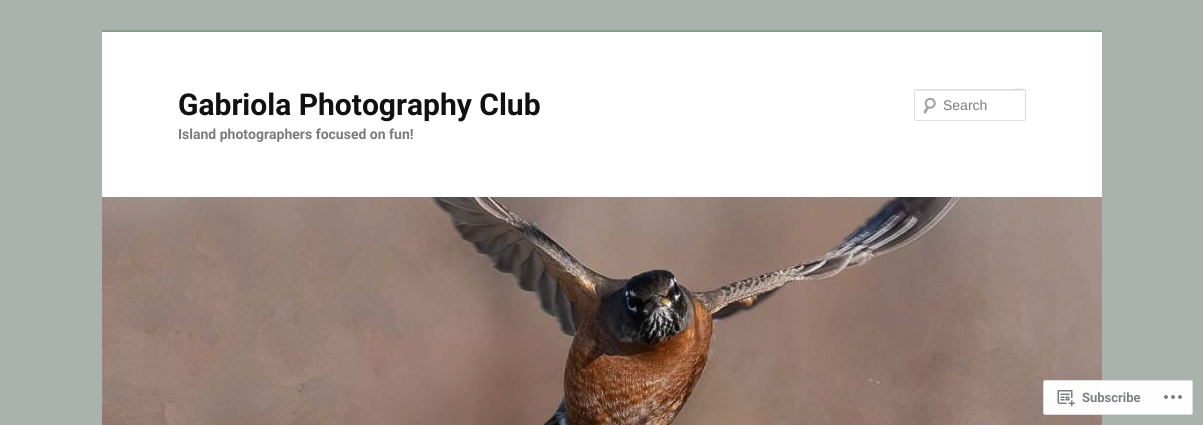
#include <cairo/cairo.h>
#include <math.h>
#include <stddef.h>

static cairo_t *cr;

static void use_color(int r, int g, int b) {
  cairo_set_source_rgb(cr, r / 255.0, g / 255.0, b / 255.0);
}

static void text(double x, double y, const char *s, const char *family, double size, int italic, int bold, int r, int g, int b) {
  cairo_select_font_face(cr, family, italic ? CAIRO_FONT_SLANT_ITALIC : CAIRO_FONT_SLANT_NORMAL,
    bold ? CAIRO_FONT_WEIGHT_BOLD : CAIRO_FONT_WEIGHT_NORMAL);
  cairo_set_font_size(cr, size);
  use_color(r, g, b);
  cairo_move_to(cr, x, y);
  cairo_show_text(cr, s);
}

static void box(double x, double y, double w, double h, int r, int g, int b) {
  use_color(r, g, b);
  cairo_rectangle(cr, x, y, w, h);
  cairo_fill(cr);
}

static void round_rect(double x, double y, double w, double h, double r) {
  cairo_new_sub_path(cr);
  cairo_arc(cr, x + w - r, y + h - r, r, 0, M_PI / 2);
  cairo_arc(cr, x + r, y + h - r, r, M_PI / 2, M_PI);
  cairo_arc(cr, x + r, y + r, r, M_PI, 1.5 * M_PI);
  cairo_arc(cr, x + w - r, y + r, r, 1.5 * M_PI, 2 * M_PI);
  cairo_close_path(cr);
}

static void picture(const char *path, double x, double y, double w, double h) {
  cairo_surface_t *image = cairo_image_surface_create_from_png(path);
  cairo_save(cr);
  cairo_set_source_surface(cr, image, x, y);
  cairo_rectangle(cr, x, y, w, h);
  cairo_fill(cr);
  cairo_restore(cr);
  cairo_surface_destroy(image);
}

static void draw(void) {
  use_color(170, 179, 171);
  cairo_paint(cr);
  box(102, 32, 1000, 165, 255, 255, 255);
  box(102, 30, 1000, 2, 141, 154, 142);
  picture("img_01.png", 923, 97, 13, 17);
  use_color(230, 230, 230);
  cairo_new_path(cr);
  cairo_move_to(cr, 916, 91);
  cairo_line_to(cr, 1025, 91);
  cairo_line_to(cr, 1025, 92);
  cairo_curve_to(cr, 1025, 85, 1010, 90, 1006, 90);
  cairo_line_to(cr, 916, 90);
  cairo_line_to(cr, 915, 92);
  cairo_curve_to(cr, 915, 91, 915, 91, 916, 91);
  cairo_close_path(cr);
  cairo_fill(cr);
  round_rect(914.5, 89.5, 111, 31, 1.5);
  use_color(221, 221, 221);
  cairo_set_line_width(cr, 1);
  cairo_stroke(cr);
  picture("img_02.png", 102, 197, 1000, 228);
  cairo_set_source_rgba(cr, 1, 1, 1, 0.98);
  round_rect(1043, 380, 150, 35, 3);
  cairo_fill(cr);
  round_rect(1043.5, 380.5, 149, 34, 2.5);
  cairo_set_source_rgba(cr, 0.863, 0.863, 0.871, 0.98);
  cairo_stroke(cr);
  picture("img_03.png", 1057, 390, 18, 17);
  picture("img_04.png", 1164, 395, 18, 4);
  text(178, 115, "Gabriola Photography Club", "Roboto", 30, 0, 1, 17, 17, 17);
  text(178, 139, "Island photographers focused on fun!", "Roboto", 14, 0, 1, 122, 122, 122);
  text(943, 110, "Search", "Liberation Sans", 14, 0, 0, 122, 122, 122);
  text(1082, 402, "Subscribe", "Roboto", 13, 0, 1, 123, 127, 132);
}

int main(void) {
  cairo_surface_t *surface = cairo_image_surface_create(CAIRO_FORMAT_RGB24, 1203, 425);
  cr = cairo_create(surface);
  cairo_font_options_t *options = cairo_font_options_create();
  cairo_font_options_set_hint_metrics(options, CAIRO_HINT_METRICS_OFF);
  cairo_font_options_set_hint_style(options, CAIRO_HINT_STYLE_NONE);
  cairo_set_font_options(cr, options);
  cairo_set_miter_limit(cr, 4);
  draw();
  cairo_surface_write_to_png(surface, "out.png");
  cairo_font_options_destroy(options);
  cairo_destroy(cr);
  cairo_surface_destroy(surface);
  return 0;
}
